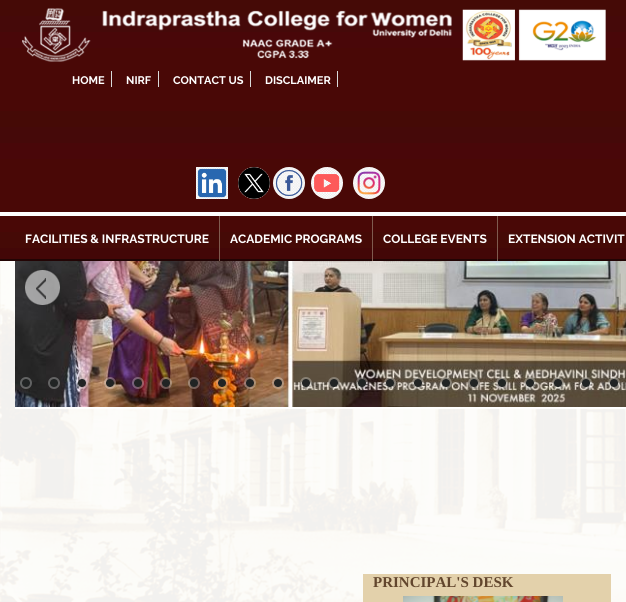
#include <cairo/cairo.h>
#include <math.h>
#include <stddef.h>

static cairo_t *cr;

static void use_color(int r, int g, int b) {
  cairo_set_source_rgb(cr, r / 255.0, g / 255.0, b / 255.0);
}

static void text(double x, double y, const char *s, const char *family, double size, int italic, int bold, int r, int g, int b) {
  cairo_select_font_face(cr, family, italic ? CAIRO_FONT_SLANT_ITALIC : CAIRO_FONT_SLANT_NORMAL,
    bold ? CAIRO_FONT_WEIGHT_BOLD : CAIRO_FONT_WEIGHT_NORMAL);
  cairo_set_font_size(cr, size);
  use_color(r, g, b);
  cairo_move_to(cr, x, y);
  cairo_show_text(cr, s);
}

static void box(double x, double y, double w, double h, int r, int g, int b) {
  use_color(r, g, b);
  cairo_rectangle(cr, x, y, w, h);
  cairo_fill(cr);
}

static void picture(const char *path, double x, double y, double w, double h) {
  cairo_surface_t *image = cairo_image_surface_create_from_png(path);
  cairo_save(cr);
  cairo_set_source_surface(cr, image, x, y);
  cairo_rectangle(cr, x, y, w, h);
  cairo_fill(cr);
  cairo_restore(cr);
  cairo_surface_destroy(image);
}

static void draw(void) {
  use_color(255, 255, 255);
  cairo_paint(cr);
  picture("img_01.png", 0, 261, 1, 341);
  picture("img_02.png", 0, 0, 626, 212);
  picture("img_03.png", 22, 8, 584, 54);
  box(111, 71, 1, 16, 218, 218, 218);
  box(158, 71, 1, 16, 218, 218, 218);
  box(250, 71, 1, 16, 218, 218, 218);
  box(337, 71, 1, 16, 218, 218, 218);
  picture("img_04.png", 196, 167, 32, 32);
  picture("img_05.png", 238, 167, 32, 32);
  picture("img_06.png", 273, 167, 32, 32);
  picture("img_07.png", 311, 167, 32, 32);
  picture("img_08.png", 353, 167, 32, 32);
  picture("img_09.png", 0, 216, 626, 43);
  box(0, 259, 626, 2, 34, 4, 4);
  box(219, 216, 1, 45, 127, 91, 79);
  box(372, 216, 1, 45, 127, 91, 79);
  box(497, 216, 1, 45, 127, 91, 79);
  picture("img_10.png", 0, 261, 626, 341);
  picture("img_11.png", 15, 261, 611, 148);
  box(363, 574, 248, 28, 227, 209, 171);
  picture("img_12.png", 403, 596, 160, 6);
  text(72, 84, "HOME", "Raleway", 11, 0, 1, 255, 255, 255);
  text(126, 84, "NIRF", "Raleway", 11, 0, 1, 255, 255, 255);
  text(173, 84, "CONTACT US", "Raleway", 11, 0, 1, 255, 255, 255);
  text(265, 84, "DISCLAIMER", "Raleway", 11, 0, 1, 255, 255, 255);
  text(25, 243, "FACILITIES & INFRASTRUCTURE", "Raleway", 12, 0, 1, 255, 255, 255);
  text(230, 243, "ACADEMIC PROGRAMS", "Raleway", 12, 0, 1, 255, 255, 255);
  text(383, 243, "COLLEGE EVENTS", "Raleway", 12, 0, 1, 255, 255, 255);
  text(508, 243, "EXTENSION ACTIVIT", "Raleway", 12, 0, 1, 255, 255, 255);
  text(373, 587, "PRINCIPAL'S DESK", "Liberation Serif", 15, 0, 1, 98, 70, 45);
}

int main(void) {
  cairo_surface_t *surface = cairo_image_surface_create(CAIRO_FORMAT_RGB24, 626, 602);
  cr = cairo_create(surface);
  cairo_font_options_t *options = cairo_font_options_create();
  cairo_font_options_set_hint_metrics(options, CAIRO_HINT_METRICS_OFF);
  cairo_font_options_set_hint_style(options, CAIRO_HINT_STYLE_NONE);
  cairo_set_font_options(cr, options);
  cairo_set_miter_limit(cr, 4);
  draw();
  cairo_surface_write_to_png(surface, "out.png");
  cairo_font_options_destroy(options);
  cairo_destroy(cr);
  cairo_surface_destroy(surface);
  return 0;
}
